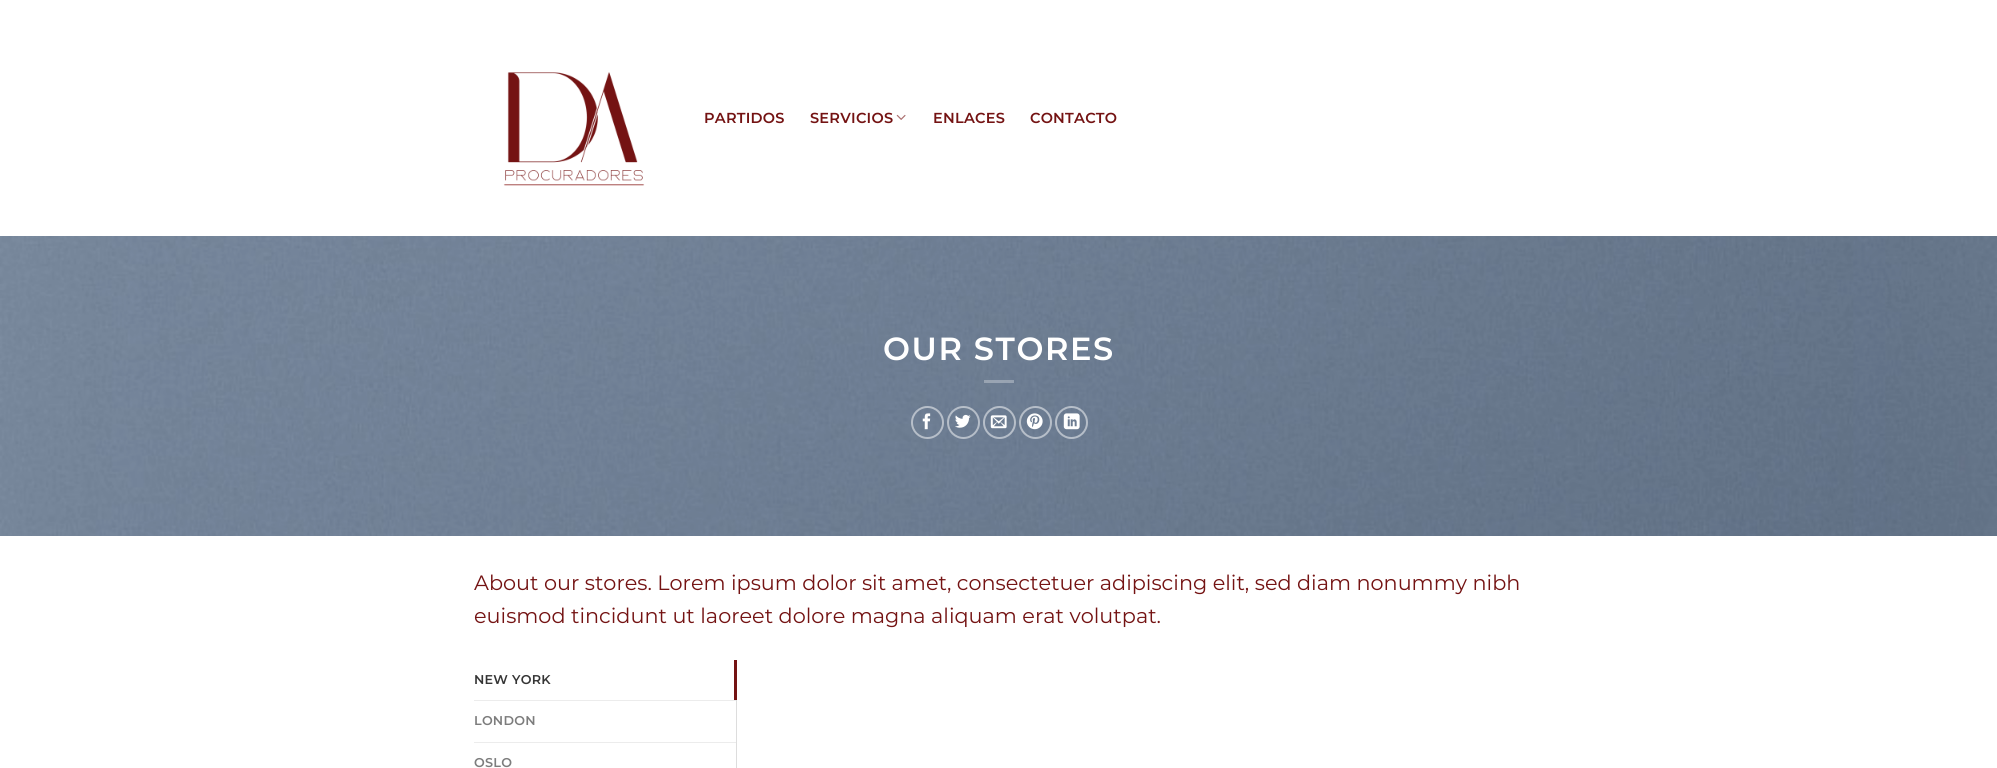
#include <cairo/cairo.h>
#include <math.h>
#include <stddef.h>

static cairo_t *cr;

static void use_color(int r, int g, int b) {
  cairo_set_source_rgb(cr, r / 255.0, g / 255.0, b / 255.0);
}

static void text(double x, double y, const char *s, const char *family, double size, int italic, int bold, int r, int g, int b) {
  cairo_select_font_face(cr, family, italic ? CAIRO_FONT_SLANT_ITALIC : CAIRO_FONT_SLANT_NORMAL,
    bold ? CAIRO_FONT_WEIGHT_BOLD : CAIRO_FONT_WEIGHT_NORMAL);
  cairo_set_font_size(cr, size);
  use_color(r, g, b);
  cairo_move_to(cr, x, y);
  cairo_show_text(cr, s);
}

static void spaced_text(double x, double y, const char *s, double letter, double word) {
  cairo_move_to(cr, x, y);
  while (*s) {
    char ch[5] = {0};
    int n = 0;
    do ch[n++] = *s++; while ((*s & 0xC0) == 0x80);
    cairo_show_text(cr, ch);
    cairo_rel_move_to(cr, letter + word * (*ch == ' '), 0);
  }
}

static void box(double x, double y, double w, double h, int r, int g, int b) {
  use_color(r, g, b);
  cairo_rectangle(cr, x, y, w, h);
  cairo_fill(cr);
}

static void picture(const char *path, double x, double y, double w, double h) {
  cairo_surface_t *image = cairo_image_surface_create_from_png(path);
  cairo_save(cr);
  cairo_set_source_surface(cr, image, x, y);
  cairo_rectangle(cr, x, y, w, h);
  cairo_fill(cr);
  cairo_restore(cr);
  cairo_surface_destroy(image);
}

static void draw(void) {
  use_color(255, 255, 255);
  cairo_paint(cr);
  picture("img_01.png", 503, 72, 142, 114);
  picture("img_02.png", 896, 114, 10, 6);
  picture("img_03.png", 0, 236, 1997, 300);
  cairo_set_source_rgba(cr, 1, 1, 1, 0.3);
  cairo_rectangle(cr, 984, 380, 30, 3);
  cairo_fill(cr);
  cairo_arc(cr, 927.5, 422.5, 15.5, 0, 2 * M_PI);
  cairo_set_source_rgba(cr, 1, 1, 1, 0.5);
  cairo_stroke(cr);
  picture("img_04.png", 922, 413, 9, 17);
  cairo_arc(cr, 963.5, 422.5, 15.5, 0, 2 * M_PI);
  cairo_stroke(cr);
  picture("img_05.png", 955, 414, 16, 14);
  cairo_arc(cr, 999.5, 422.5, 15.5, 0, 2 * M_PI);
  cairo_stroke(cr);
  picture("img_06.png", 990, 415, 17, 14);
  cairo_arc(cr, 1035.5, 422.5, 15.5, 0, 2 * M_PI);
  cairo_stroke(cr);
  picture("img_07.png", 1026, 413, 17, 17);
  cairo_arc(cr, 1071.5, 422.5, 15.5, 0, 2 * M_PI);
  cairo_stroke(cr);
  picture("img_08.png", 1063, 413, 17, 17);
  box(734, 660, 3, 40, 116, 19, 19);
  box(474, 700, 262, 1, 236, 236, 236);
  box(474, 742, 262, 1, 236, 236, 236);
  box(736, 700, 1, 68, 221, 221, 221);
  cairo_select_font_face(cr, "Montserrat SemiBold", CAIRO_FONT_SLANT_NORMAL, CAIRO_FONT_WEIGHT_NORMAL);
  cairo_set_font_size(cr, 14.5);
  use_color(116, 19, 19);
  spaced_text(704, 123, "PARTIDOS", 0.25, 0);
  spaced_text(810, 123, "SERVICIOS", 0.25, 0);
  spaced_text(933, 123, "ENLACES", 0.25, 0);
  spaced_text(1030, 123, "CONTACTO", 0.25, 0);
  cairo_set_font_size(cr, 32);
  use_color(255, 255, 255);
  spaced_text(883, 360, "OUR STORES", 1.6, 0);
  text(474, 590, "About our stores. Lorem ipsum dolor sit amet, consectetuer adipiscing elit, sed diam nonummy nibh", "Montserrat", 20.8, 0, 0, 116, 19, 19);
  text(474, 623, "euismod tincidunt ut laoreet dolore magna aliquam erat volutpat.", "Montserrat", 20.8, 0, 0, 116, 19, 19);
  cairo_select_font_face(cr, "Montserrat SemiBold", CAIRO_FONT_SLANT_NORMAL, CAIRO_FONT_WEIGHT_NORMAL);
  cairo_set_font_size(cr, 12.75);
  use_color(53, 53, 53);
  spaced_text(474, 684, "NEW YORK", 0.25, 0);
  use_color(125, 125, 125);
  spaced_text(474, 725, "LONDON", 0.25, 0);
  spaced_text(474, 767, "OSLO", 0.25, 0);
}

int main(void) {
  cairo_surface_t *surface = cairo_image_surface_create(CAIRO_FORMAT_RGB24, 1997, 768);
  cr = cairo_create(surface);
  cairo_font_options_t *options = cairo_font_options_create();
  cairo_font_options_set_hint_metrics(options, CAIRO_HINT_METRICS_OFF);
  cairo_font_options_set_hint_style(options, CAIRO_HINT_STYLE_NONE);
  cairo_set_font_options(cr, options);
  cairo_set_miter_limit(cr, 4);
  draw();
  cairo_surface_write_to_png(surface, "out.png");
  cairo_font_options_destroy(options);
  cairo_destroy(cr);
  cairo_surface_destroy(surface);
  return 0;
}
